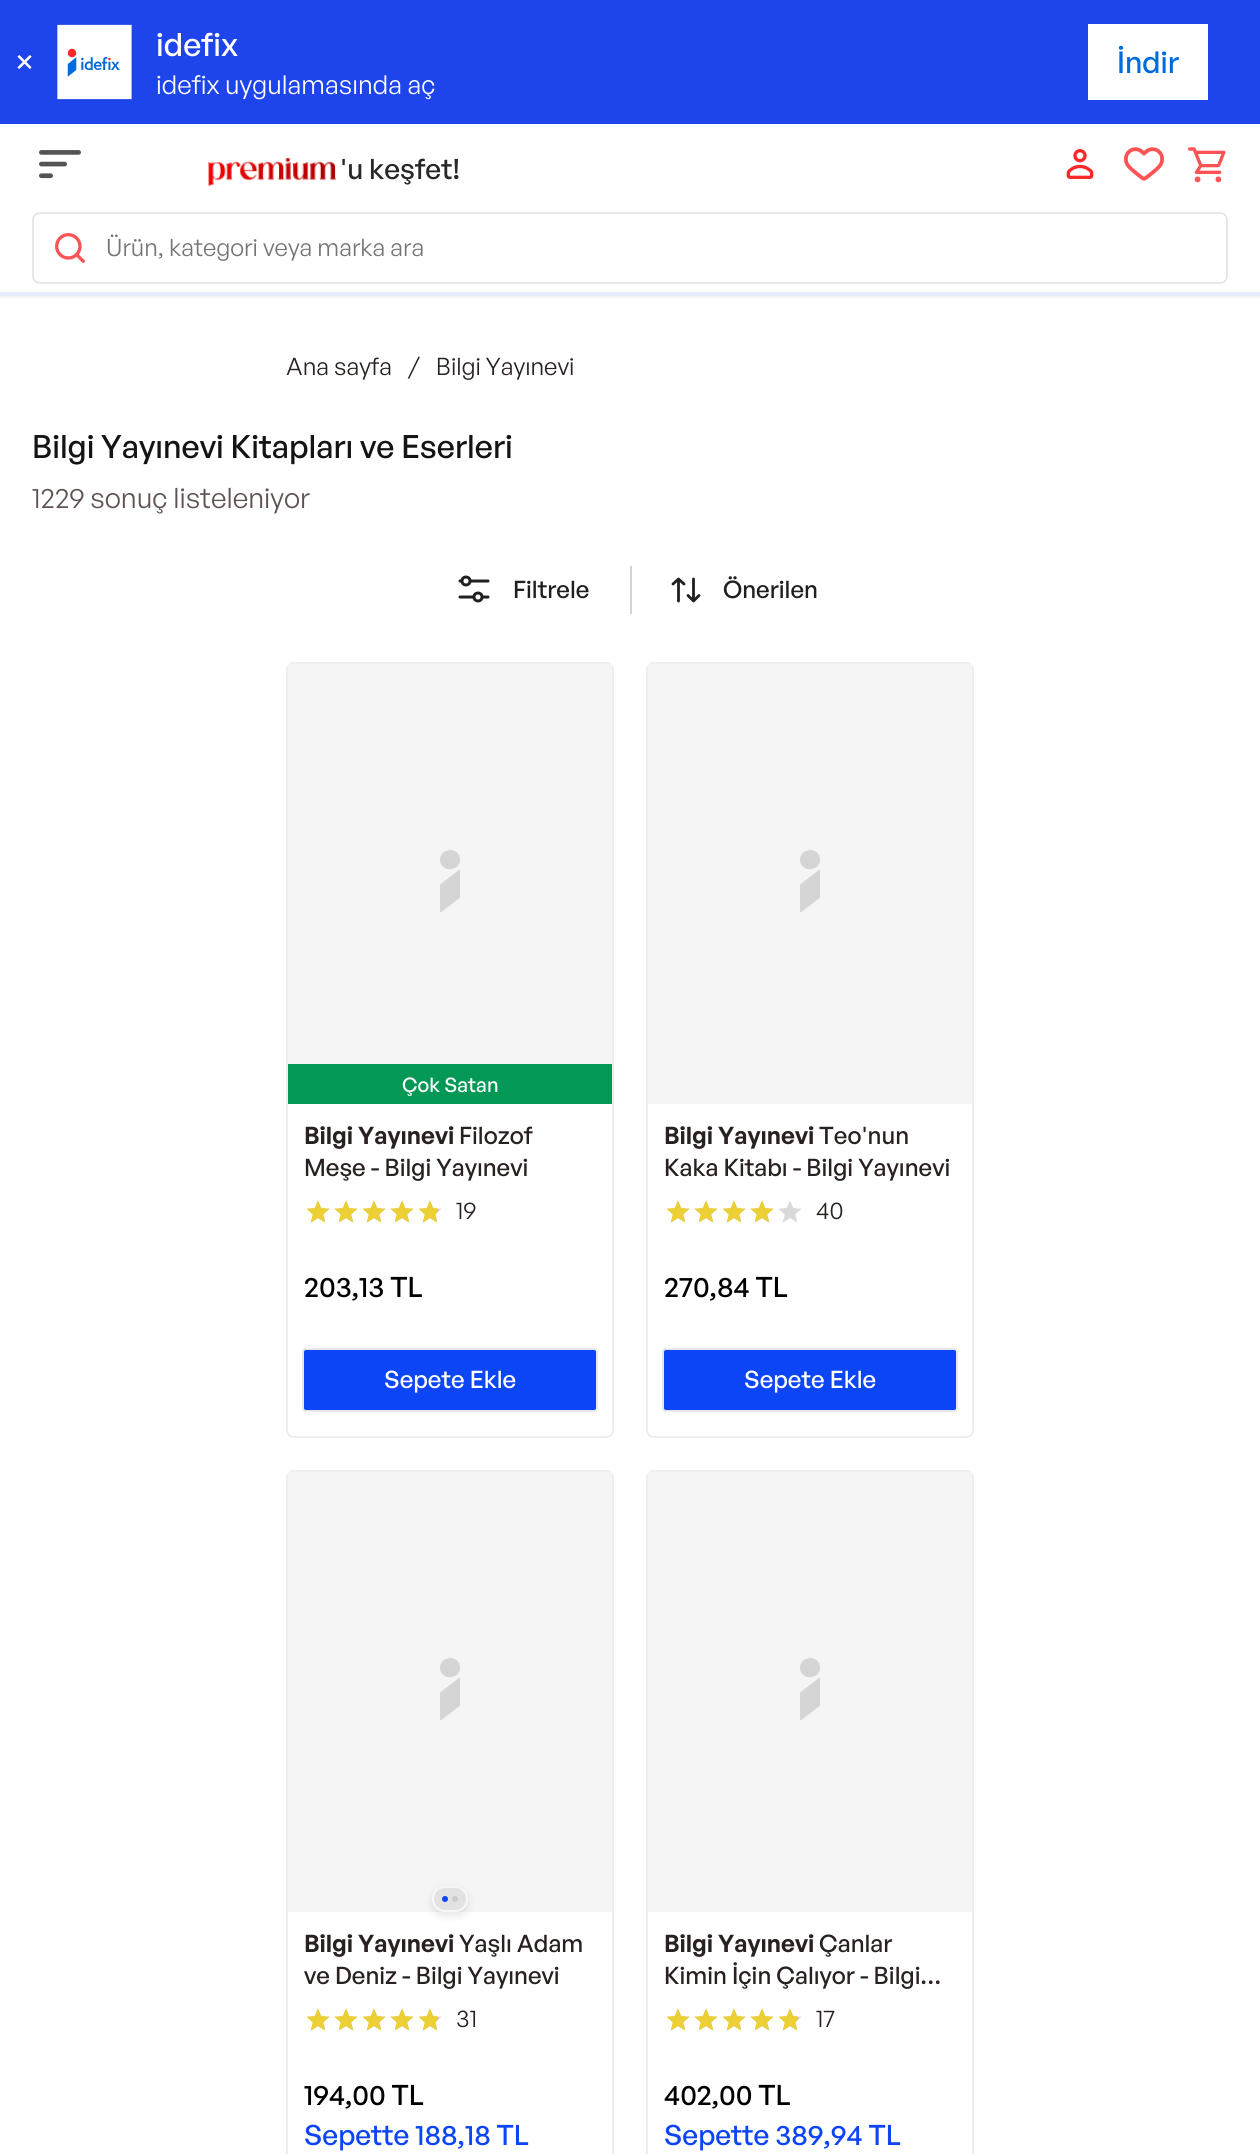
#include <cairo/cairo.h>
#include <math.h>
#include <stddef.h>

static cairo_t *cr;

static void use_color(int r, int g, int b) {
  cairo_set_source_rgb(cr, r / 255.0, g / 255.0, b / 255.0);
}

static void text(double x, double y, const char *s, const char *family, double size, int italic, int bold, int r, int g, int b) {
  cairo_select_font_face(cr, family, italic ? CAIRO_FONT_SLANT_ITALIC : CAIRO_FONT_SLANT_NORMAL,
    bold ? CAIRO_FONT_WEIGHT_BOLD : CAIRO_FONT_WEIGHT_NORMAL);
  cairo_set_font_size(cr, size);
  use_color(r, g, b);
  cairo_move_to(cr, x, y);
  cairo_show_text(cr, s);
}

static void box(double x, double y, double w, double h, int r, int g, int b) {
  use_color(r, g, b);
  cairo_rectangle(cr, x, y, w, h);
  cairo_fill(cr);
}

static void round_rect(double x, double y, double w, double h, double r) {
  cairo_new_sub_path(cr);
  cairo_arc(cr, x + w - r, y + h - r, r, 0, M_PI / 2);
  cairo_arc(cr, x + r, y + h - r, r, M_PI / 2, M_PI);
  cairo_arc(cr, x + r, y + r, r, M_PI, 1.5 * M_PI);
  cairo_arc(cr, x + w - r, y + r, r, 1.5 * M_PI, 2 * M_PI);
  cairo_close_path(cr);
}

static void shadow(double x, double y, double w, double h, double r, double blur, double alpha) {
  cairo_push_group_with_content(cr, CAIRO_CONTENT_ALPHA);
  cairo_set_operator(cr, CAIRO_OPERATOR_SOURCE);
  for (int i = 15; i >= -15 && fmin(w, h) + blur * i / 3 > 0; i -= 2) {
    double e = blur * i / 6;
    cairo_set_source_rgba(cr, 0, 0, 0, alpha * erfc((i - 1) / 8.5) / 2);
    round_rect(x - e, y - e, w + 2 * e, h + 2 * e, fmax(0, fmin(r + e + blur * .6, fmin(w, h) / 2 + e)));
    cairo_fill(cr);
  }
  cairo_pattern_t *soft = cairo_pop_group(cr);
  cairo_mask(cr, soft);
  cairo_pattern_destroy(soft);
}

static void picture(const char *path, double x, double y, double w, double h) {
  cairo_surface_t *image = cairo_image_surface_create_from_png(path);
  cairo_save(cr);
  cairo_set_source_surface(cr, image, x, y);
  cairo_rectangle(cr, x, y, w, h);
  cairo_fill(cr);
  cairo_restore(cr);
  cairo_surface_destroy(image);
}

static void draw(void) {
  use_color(255, 255, 255);
  cairo_paint(cr);
  box(0, 0, 1260, 124, 30, 68, 236);
  picture("img_01.png", 17, 55, 15, 14);
  picture("img_02.png", 56, 23, 77, 78);
  box(1088, 24, 120, 76, 255, 255, 255);
  box(0, 296, 1260, 2, 245, 245, 245);
  picture("img_03.png", 39, 150, 42, 29);
  picture("img_04.png", 208, 158, 128, 28);
  picture("img_05.png", 1066, 149, 28, 30);
  picture("img_06.png", 1124, 147, 40, 34);
  picture("img_07.png", 1188, 147, 38, 36);
  round_rect(33, 213, 1194, 70, 7);
  use_color(229, 231, 235);
  cairo_stroke(cr);
  picture("img_08.png", 55, 233, 30, 30);
  box(0, 292, 1260, 4, 231, 236, 254);
  cairo_new_path(cr);
  cairo_move_to(cr, 460, 581);
  cairo_line_to(cr, 488, 581);
  use_color(31, 31, 31);
  cairo_set_line_width(cr, 3);
  cairo_set_line_cap(cr, CAIRO_LINE_CAP_ROUND);
  cairo_stroke(cr);
  use_color(255, 255, 255);
  cairo_arc(cr, 466, 581, 4, 0, 2 * M_PI);
  cairo_fill_preserve(cr);
  use_color(31, 31, 31);
  cairo_set_line_cap(cr, CAIRO_LINE_CAP_BUTT);
  cairo_stroke(cr);
  cairo_new_path(cr);
  cairo_move_to(cr, 460, 597);
  cairo_line_to(cr, 488, 597);
  cairo_set_line_cap(cr, CAIRO_LINE_CAP_ROUND);
  cairo_stroke(cr);
  use_color(255, 255, 255);
  cairo_arc(cr, 478, 597, 4, 0, 2 * M_PI);
  cairo_fill_preserve(cr);
  use_color(31, 31, 31);
  cairo_set_line_cap(cr, CAIRO_LINE_CAP_BUTT);
  cairo_stroke(cr);
  box(630, 566, 2, 48, 209, 213, 219);
  cairo_new_path(cr);
  cairo_move_to(cr, 688, 595.5);
  cairo_line_to(cr, 693.5, 601);
  cairo_move_to(cr, 693.5, 601);
  cairo_line_to(cr, 699, 595.5);
  cairo_move_to(cr, 693.5, 601);
  cairo_line_to(cr, 693.5, 579);
  cairo_move_to(cr, 684, 584);
  cairo_line_to(cr, 678.5, 579);
  cairo_move_to(cr, 678.5, 579);
  cairo_line_to(cr, 673, 584);
  cairo_move_to(cr, 678.5, 579);
  cairo_line_to(cr, 678.5, 601);
  use_color(31, 31, 31);
  cairo_set_line_width(cr, 2.8);
  cairo_set_line_cap(cr, CAIRO_LINE_CAP_ROUND);
  cairo_set_line_join(cr, CAIRO_LINE_JOIN_ROUND);
  cairo_stroke(cr);
  round_rect(287, 663, 326, 774, 7);
  use_color(238, 238, 238);
  cairo_set_line_width(cr, 2);
  cairo_set_line_cap(cr, CAIRO_LINE_CAP_BUTT);
  cairo_set_line_join(cr, CAIRO_LINE_JOIN_MITER);
  cairo_stroke(cr);
  box(288, 664, 324, 400, 245, 245, 245);
  picture("img_09.png", 440, 850, 20, 62);
  box(288, 1064, 324, 40, 3, 152, 85);
  picture("img_12.png", 306, 1201, 24, 22);
  picture("img_10.png", 306, 1200, 24, 23);
  picture("img_12.png", 334, 1201, 24, 22);
  picture("img_10.png", 334, 1200, 24, 23);
  picture("img_12.png", 362, 1201, 24, 22);
  picture("img_10.png", 362, 1200, 24, 23);
  picture("img_12.png", 390, 1201, 24, 22);
  picture("img_10.png", 390, 1200, 24, 23);
  picture("img_12.png", 418, 1201, 24, 22);
  picture("img_11.png", 418, 1200, 20, 23);
  use_color(12, 69, 245);
  round_rect(303, 1349, 294, 62, 3);
  cairo_fill_preserve(cr);
  use_color(229, 231, 235);
  cairo_stroke(cr);
  round_rect(647, 663, 326, 774, 7);
  use_color(238, 238, 238);
  cairo_stroke(cr);
  box(648, 664, 324, 440, 245, 245, 245);
  picture("img_09.png", 800, 850, 20, 62);
  picture("img_12.png", 666, 1201, 24, 22);
  picture("img_10.png", 666, 1200, 24, 23);
  picture("img_12.png", 694, 1201, 24, 22);
  picture("img_10.png", 694, 1200, 24, 23);
  picture("img_12.png", 722, 1201, 24, 22);
  picture("img_10.png", 722, 1200, 24, 23);
  picture("img_12.png", 750, 1201, 24, 22);
  picture("img_10.png", 750, 1200, 24, 23);
  picture("img_12.png", 778, 1201, 24, 22);
  use_color(12, 69, 245);
  round_rect(663, 1349, 294, 62, 3);
  cairo_fill_preserve(cr);
  use_color(229, 231, 235);
  cairo_stroke(cr);
  round_rect(287, 1471, 326, 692, 7);
  use_color(238, 238, 238);
  cairo_stroke(cr);
  box(288, 1472, 324, 440, 245, 245, 245);
  picture("img_09.png", 440, 1658, 20, 62);
  cairo_save(cr);
  cairo_set_fill_rule(cr, CAIRO_FILL_RULE_EVEN_ODD);
  cairo_new_path(cr);
  cairo_move_to(cr, 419, 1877);
  cairo_line_to(cr, 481, 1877);
  cairo_line_to(cr, 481, 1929);
  cairo_line_to(cr, 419, 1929);
  cairo_close_path(cr);
  cairo_move_to(cr, 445, 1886);
  cairo_line_to(cr, 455, 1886);
  cairo_curve_to(cr, 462, 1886, 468, 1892, 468, 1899);
  cairo_curve_to(cr, 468, 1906, 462, 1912, 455, 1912);
  cairo_line_to(cr, 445, 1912);
  cairo_curve_to(cr, 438, 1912, 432, 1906, 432, 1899);
  cairo_curve_to(cr, 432, 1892, 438, 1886, 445, 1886);
  cairo_close_path(cr);
  cairo_clip(cr);
  use_color(0, 0, 0);
  shadow(432, 1890, 36, 26, 13, 4, 0.1);
  cairo_restore(cr);
  cairo_set_source_rgba(cr, 0, 0, 0, 0.08);
  round_rect(433, 1887, 34, 24, 12);
  cairo_fill_preserve(cr);
  use_color(246, 246, 246);
  cairo_stroke(cr);
  use_color(12, 69, 245);
  cairo_arc(cr, 445, 1899, 3, 0, 2 * M_PI);
  cairo_fill(cr);
  use_color(203, 203, 203);
  cairo_arc(cr, 455, 1899, 3, 0, 2 * M_PI);
  cairo_fill(cr);
  picture("img_12.png", 306, 2009, 24, 22);
  picture("img_10.png", 306, 2008, 24, 23);
  picture("img_12.png", 334, 2009, 24, 22);
  picture("img_10.png", 334, 2008, 24, 23);
  picture("img_12.png", 362, 2009, 24, 22);
  picture("img_10.png", 362, 2008, 24, 23);
  picture("img_12.png", 390, 2009, 24, 22);
  picture("img_10.png", 390, 2008, 24, 23);
  picture("img_12.png", 418, 2009, 24, 22);
  picture("img_11.png", 418, 2008, 20, 23);
  round_rect(647, 1471, 326, 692, 7);
  use_color(238, 238, 238);
  cairo_stroke(cr);
  box(648, 1472, 324, 440, 245, 245, 245);
  picture("img_09.png", 800, 1658, 20, 62);
  picture("img_12.png", 666, 2009, 24, 22);
  picture("img_10.png", 666, 2008, 24, 23);
  picture("img_12.png", 694, 2009, 24, 22);
  picture("img_10.png", 694, 2008, 24, 23);
  picture("img_12.png", 722, 2009, 24, 22);
  picture("img_10.png", 722, 2008, 24, 23);
  picture("img_12.png", 750, 2009, 24, 22);
  picture("img_10.png", 750, 2008, 24, 23);
  picture("img_12.png", 778, 2009, 24, 22);
  picture("img_11.png", 778, 2008, 20, 23);
  text(156, 56, "idefix", "General Sans Medium", 32, 0, 0, 255, 255, 255);
  text(156, 94, "idefix uygulamasında aç", "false", 26, 0, 0, 255, 255, 255);
  text(1117, 73, "İndir", "General Sans Medium", 30, 0, 0, 0, 107, 220);
  text(340, 179, "'u keşfet!", "General Sans Medium", 28, 0, 0, 40, 40, 40);
  text(106, 256, "Ürün, kategori veya marka ara", "false", 24, 0, 0, 117, 117, 117);
  text(286, 375, "Ana sayfa", "false", 24, 0, 0, 41, 32, 32);
  text(408, 374, "/", "false", 24, 0, 0, 41, 32, 32);
  text(436, 375, "Bilgi Yayınevi", "false", 24, 0, 0, 41, 32, 32);
  text(32, 458, "Bilgi Yayınevi Kitapları ve Eserleri", "General Sans Medium", 32, 0, 0, 20, 20, 20);
  text(32, 508, "1229 sonuç listeleniyor", "false", 28, 0, 0, 95, 83, 83);
  text(513, 598, "Filtrele", "General Sans Medium", 24, 0, 0, 31, 31, 31);
  text(723, 598, "Önerilen", "General Sans Medium", 24, 0, 0, 31, 31, 31);
  text(402, 1092, "Çok Satan", "General Sans Medium", 20, 0, 0, 255, 255, 255);
  text(304, 1144, "Bilgi Yayınevi", "General Sans SemiBold", 24, 0, 0, 41, 32, 32);
  text(459, 1144, "Filozof", "General Sans Medium", 24, 0, 0, 41, 32, 32);
  text(304, 1176, "Meşe - Bilgi Yayınevi", "General Sans Medium", 24, 0, 0, 41, 32, 32);
  text(456, 1219, "19", "false", 24, 0, 0, 41, 32, 32);
  text(304, 1297, "203,13 TL", "General Sans Medium", 28, 0, 0, 0, 0, 0);
  text(384, 1388, "Sepete Ekle", "General Sans Medium", 24, 0, 0, 255, 255, 255);
  text(664, 1144, "Bilgi Yayınevi", "General Sans SemiBold", 24, 0, 0, 41, 32, 32);
  text(819, 1144, "Teo'nun", "General Sans Medium", 24, 0, 0, 41, 32, 32);
  text(664, 1176, "Kaka Kitabı - Bilgi Yayınevi", "General Sans Medium", 24, 0, 0, 41, 32, 32);
  text(816, 1219, "40", "false", 24, 0, 0, 41, 32, 32);
  text(664, 1297, "270,84 TL", "General Sans Medium", 28, 0, 0, 0, 0, 0);
  text(744, 1388, "Sepete Ekle", "General Sans Medium", 24, 0, 0, 255, 255, 255);
  text(304, 1952, "Bilgi Yayınevi", "General Sans SemiBold", 24, 0, 0, 41, 32, 32);
  text(459, 1952, "Yaşlı Adam", "General Sans Medium", 24, 0, 0, 41, 32, 32);
  text(304, 1984, "ve Deniz - Bilgi Yayınevi", "General Sans Medium", 24, 0, 0, 41, 32, 32);
  text(456, 2027, "31", "false", 24, 0, 0, 41, 32, 32);
  text(304, 2105, "194,00 TL", "General Sans Medium", 28, 0, 0, 0, 0, 0);
  text(304, 2145, "Sepette 188,18 TL", "General Sans Medium", 28, 0, 0, 12, 69, 245);
  text(664, 1952, "Bilgi Yayınevi", "General Sans SemiBold", 24, 0, 0, 41, 32, 32);
  text(819, 1952, "Çanlar", "General Sans Medium", 24, 0, 0, 41, 32, 32);
  text(664, 1984, "Kimin İçin Çalıyor - Bilgi…", "General Sans Medium", 24, 0, 0, 41, 32, 32);
  text(816, 2027, "17", "false", 24, 0, 0, 41, 32, 32);
  text(664, 2105, "402,00 TL", "General Sans Medium", 28, 0, 0, 0, 0, 0);
  text(664, 2145, "Sepette 389,94 TL", "General Sans Medium", 28, 0, 0, 12, 69, 245);
}

int main(void) {
  cairo_surface_t *surface = cairo_image_surface_create(CAIRO_FORMAT_RGB24, 1260, 2154);
  cr = cairo_create(surface);
  cairo_font_options_t *options = cairo_font_options_create();
  cairo_font_options_set_hint_metrics(options, CAIRO_HINT_METRICS_OFF);
  cairo_font_options_set_hint_style(options, CAIRO_HINT_STYLE_NONE);
  cairo_set_font_options(cr, options);
  cairo_set_miter_limit(cr, 4);
  draw();
  cairo_surface_write_to_png(surface, "out.png");
  cairo_font_options_destroy(options);
  cairo_destroy(cr);
  cairo_surface_destroy(surface);
  return 0;
}
